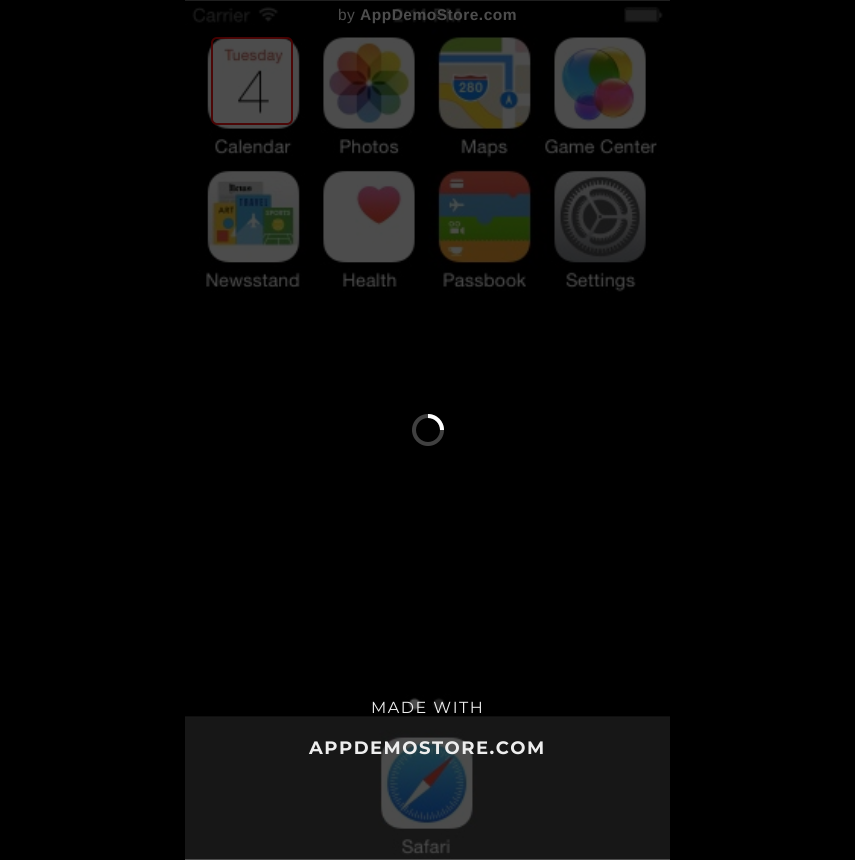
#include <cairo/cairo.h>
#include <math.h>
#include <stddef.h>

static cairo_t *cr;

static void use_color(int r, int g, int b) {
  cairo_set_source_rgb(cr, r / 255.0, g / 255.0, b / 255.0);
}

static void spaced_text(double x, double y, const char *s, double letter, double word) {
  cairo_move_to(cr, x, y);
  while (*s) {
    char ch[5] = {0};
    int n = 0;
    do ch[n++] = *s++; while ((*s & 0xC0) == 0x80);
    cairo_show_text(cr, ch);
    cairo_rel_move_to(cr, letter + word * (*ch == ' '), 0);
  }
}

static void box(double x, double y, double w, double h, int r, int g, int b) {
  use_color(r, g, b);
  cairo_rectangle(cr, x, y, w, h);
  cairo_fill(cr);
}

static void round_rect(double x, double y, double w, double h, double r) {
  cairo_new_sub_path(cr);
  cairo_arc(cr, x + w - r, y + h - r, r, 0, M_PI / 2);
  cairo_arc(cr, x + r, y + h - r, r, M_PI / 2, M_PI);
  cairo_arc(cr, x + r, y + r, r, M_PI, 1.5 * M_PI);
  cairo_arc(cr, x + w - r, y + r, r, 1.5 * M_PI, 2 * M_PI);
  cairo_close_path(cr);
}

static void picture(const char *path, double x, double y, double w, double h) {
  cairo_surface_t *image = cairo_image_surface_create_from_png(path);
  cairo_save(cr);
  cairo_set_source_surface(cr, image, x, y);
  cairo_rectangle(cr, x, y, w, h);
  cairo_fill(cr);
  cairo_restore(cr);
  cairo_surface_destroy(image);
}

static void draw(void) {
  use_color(0, 0, 0);
  cairo_paint(cr);
  box(185, 0, 485, 860, 77, 77, 77);
  picture("img_01.png", 185, 1, 485, 858);
  round_rect(212, 38, 80, 86, 5);
  cairo_set_source_rgba(cr, 0.302, 0, 0, 0.9);
  cairo_stroke(cr);
  cairo_set_source_rgba(cr, 0, 0, 0, 0.6);
  cairo_rectangle(cr, 185, 0, 485, 23);
  cairo_fill(cr);
  picture("img_02.png", 412, 414, 32, 32);
  cairo_select_font_face(cr, "Liberation Sans", CAIRO_FONT_SLANT_NORMAL, CAIRO_FONT_WEIGHT_NORMAL);
  cairo_set_font_size(cr, 15.5);
  use_color(77, 77, 77);
  spaced_text(338, 20, "by", 0.5, 0);
  cairo_select_font_face(cr, "Liberation Sans", CAIRO_FONT_SLANT_NORMAL, CAIRO_FONT_WEIGHT_BOLD);
  spaced_text(360, 20, "AppDemoStore.com", 0.5, 0);
  cairo_select_font_face(cr, "Montserrat", CAIRO_FONT_SLANT_NORMAL, CAIRO_FONT_WEIGHT_NORMAL);
  cairo_set_font_size(cr, 16);
  use_color(238, 238, 238);
  spaced_text(371, 713, "MADE WITH", 1.5, 0);
  cairo_select_font_face(cr, "Montserrat", CAIRO_FONT_SLANT_NORMAL, CAIRO_FONT_WEIGHT_BOLD);
  cairo_set_font_size(cr, 18);
  spaced_text(309, 754, "APPDEMOSTORE.COM", 1.5, 0);
}

int main(void) {
  cairo_surface_t *surface = cairo_image_surface_create(CAIRO_FORMAT_RGB24, 855, 860);
  cr = cairo_create(surface);
  cairo_font_options_t *options = cairo_font_options_create();
  cairo_font_options_set_hint_metrics(options, CAIRO_HINT_METRICS_OFF);
  cairo_font_options_set_hint_style(options, CAIRO_HINT_STYLE_NONE);
  cairo_set_font_options(cr, options);
  cairo_set_miter_limit(cr, 4);
  draw();
  cairo_surface_write_to_png(surface, "out.png");
  cairo_font_options_destroy(options);
  cairo_destroy(cr);
  cairo_surface_destroy(surface);
  return 0;
}
